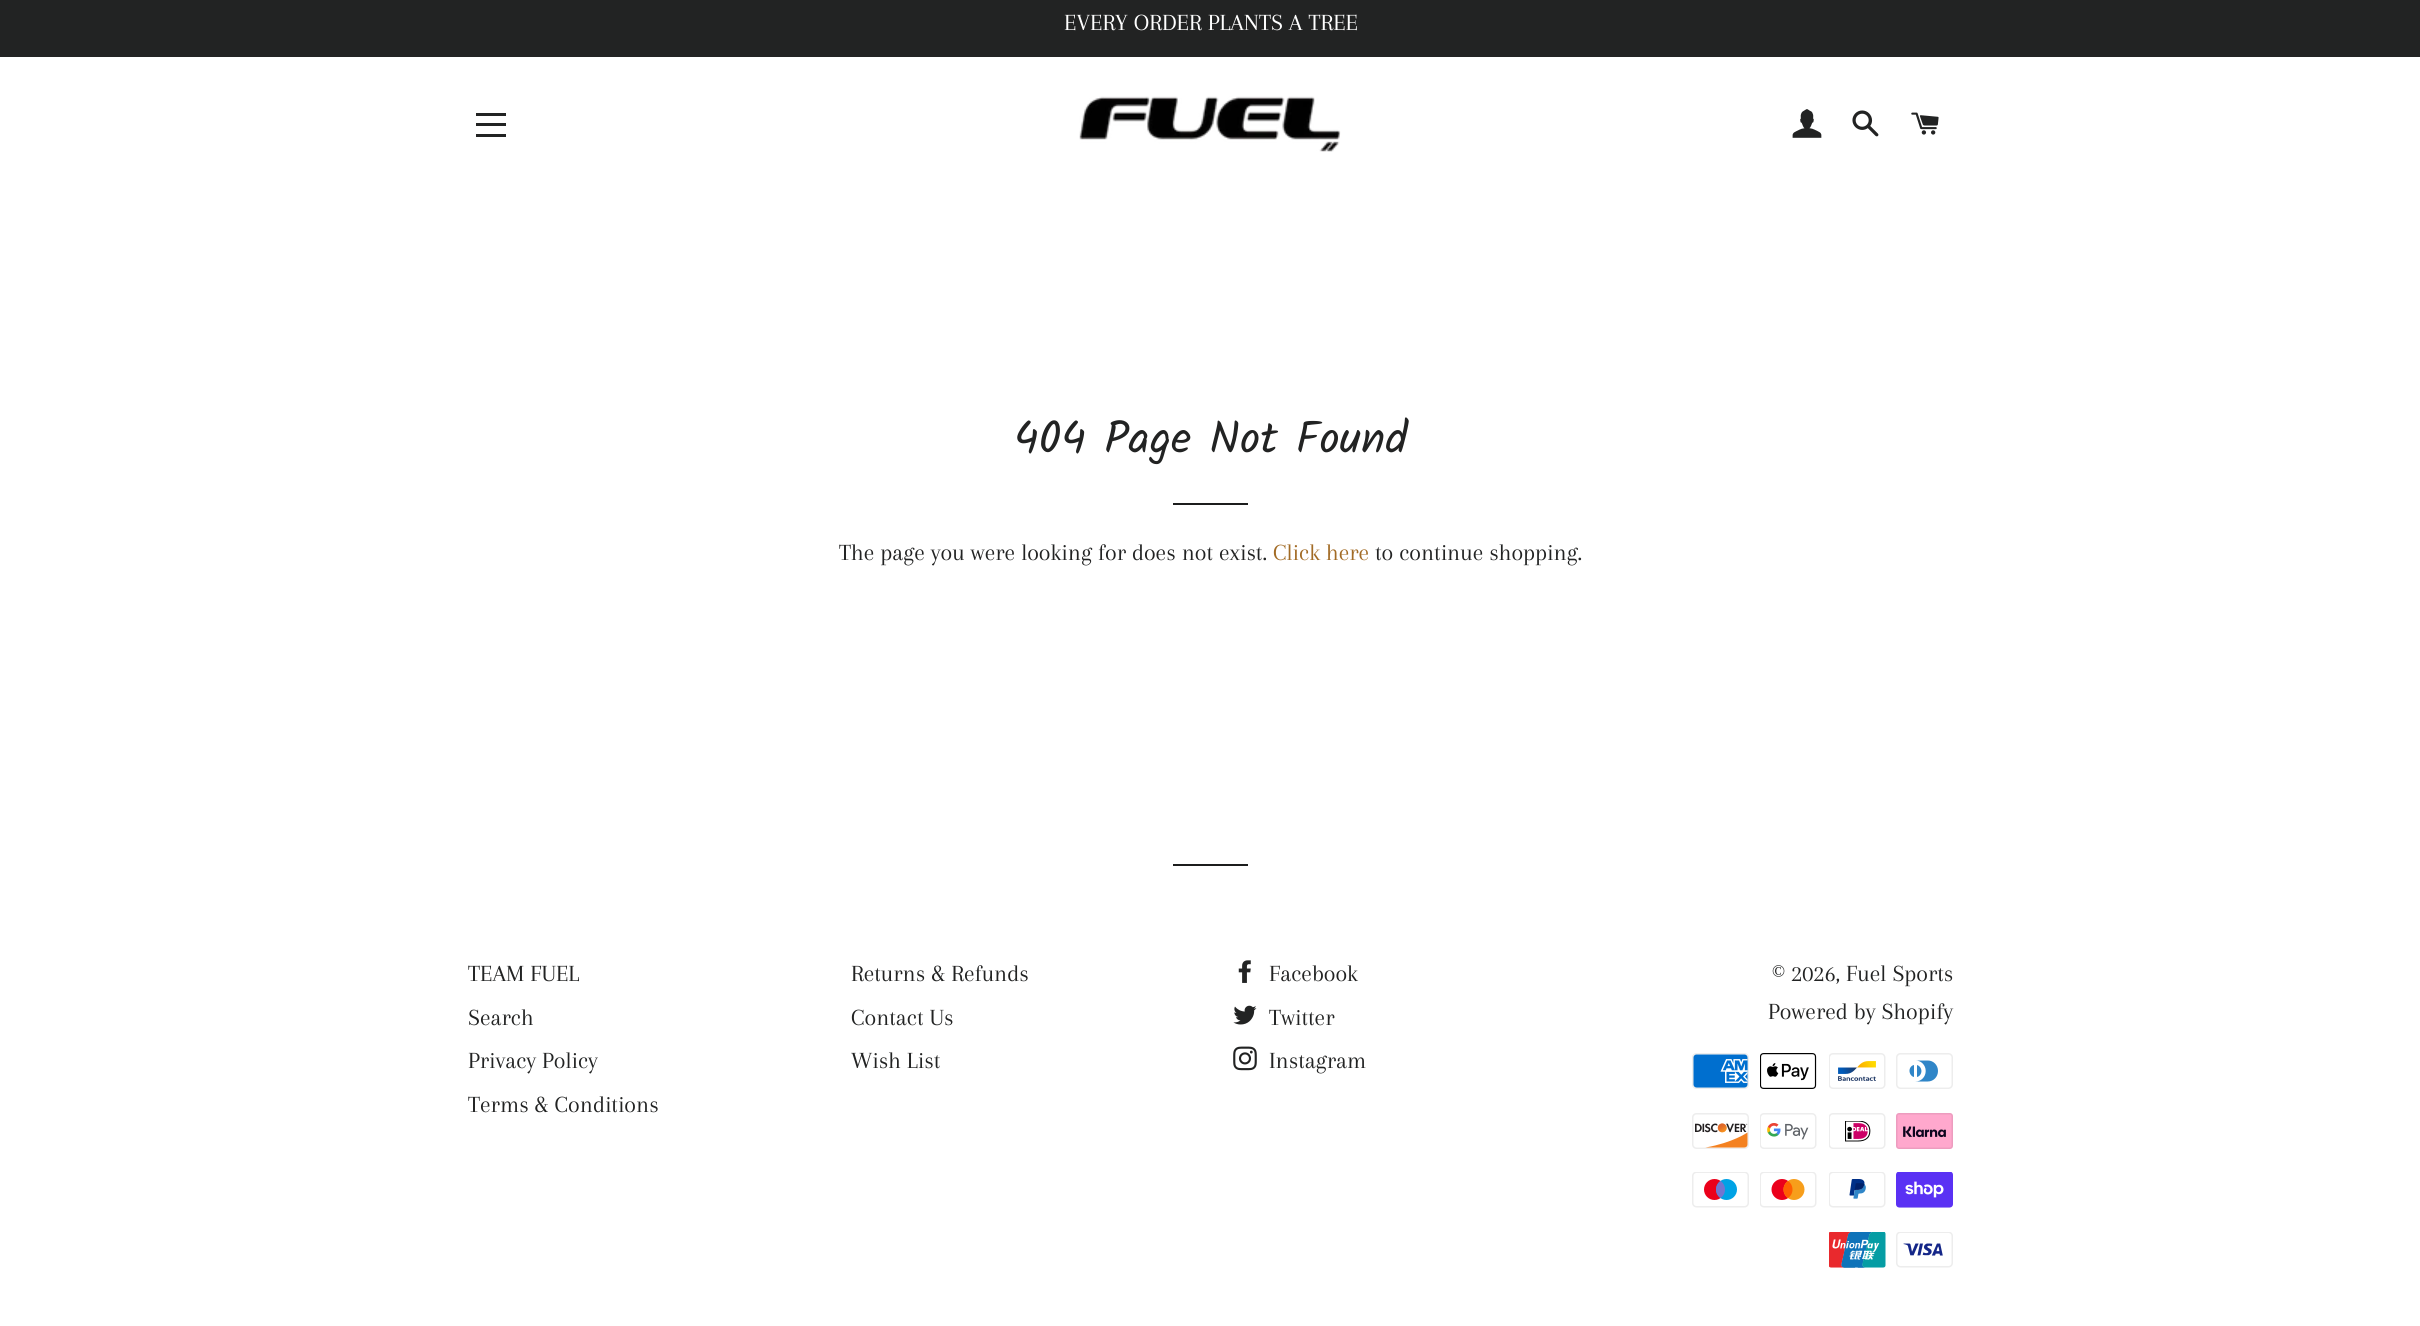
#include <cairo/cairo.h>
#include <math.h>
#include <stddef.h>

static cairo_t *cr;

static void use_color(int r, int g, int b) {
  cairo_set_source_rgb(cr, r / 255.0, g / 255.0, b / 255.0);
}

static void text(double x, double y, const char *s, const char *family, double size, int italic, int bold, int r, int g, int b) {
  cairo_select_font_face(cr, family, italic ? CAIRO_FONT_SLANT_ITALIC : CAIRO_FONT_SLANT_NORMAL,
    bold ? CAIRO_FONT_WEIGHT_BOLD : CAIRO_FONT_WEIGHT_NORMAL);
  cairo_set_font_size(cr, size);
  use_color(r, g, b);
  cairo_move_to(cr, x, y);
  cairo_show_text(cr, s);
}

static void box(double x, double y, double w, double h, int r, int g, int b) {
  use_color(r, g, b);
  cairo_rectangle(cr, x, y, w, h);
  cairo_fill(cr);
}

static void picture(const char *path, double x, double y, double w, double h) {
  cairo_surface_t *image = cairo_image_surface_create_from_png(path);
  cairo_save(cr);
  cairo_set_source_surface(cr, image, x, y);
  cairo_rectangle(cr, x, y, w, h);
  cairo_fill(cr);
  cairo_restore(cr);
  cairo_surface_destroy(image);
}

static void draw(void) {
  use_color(255, 255, 255);
  cairo_paint(cr);
  box(0, 0, 2420, 57, 34, 35, 35);
  box(476, 113, 30, 3, 34, 35, 35);
  box(476, 123, 30, 3, 34, 35, 35);
  box(476, 134, 30, 3, 34, 35, 35);
  picture("img_01.png", 1079, 96, 262, 56);
  picture("img_02.png", 1792, 109, 30, 29);
  picture("img_03.png", 1852, 110, 27, 27);
  picture("img_04.png", 1911, 112, 28, 23);
  box(1173, 503, 75, 2, 28, 29, 29);
  box(1173, 864, 75, 2, 28, 29, 29);
  picture("img_05.png", 1238, 960, 13, 23);
  picture("img_06.png", 1233, 1005, 24, 20);
  picture("img_07.png", 1233, 1046, 24, 25);
  picture("img_08.png", 1692, 1053, 57, 36);
  picture("img_09.png", 1760, 1053, 57, 36);
  picture("img_10.png", 1829, 1053, 57, 36);
  picture("img_11.png", 1896, 1053, 57, 36);
  picture("img_12.png", 1692, 1113, 57, 36);
  picture("img_13.png", 1760, 1113, 57, 36);
  picture("img_14.png", 1829, 1113, 57, 36);
  picture("img_15.png", 1896, 1113, 57, 36);
  picture("img_16.png", 1692, 1172, 57, 36);
  picture("img_17.png", 1760, 1172, 57, 36);
  picture("img_18.png", 1829, 1172, 57, 36);
  picture("img_19.png", 1896, 1172, 57, 36);
  picture("img_20.png", 1829, 1232, 57, 36);
  picture("img_21.png", 1896, 1232, 57, 36);
  text(1064, 30, "EVERY ORDER PLANTS A TREE", "Arapey", 24, 0, 0, 255, 255, 255);
  text(1014, 453, "404 Page Not Found", "Kalam", 45, 0, 0, 34, 35, 35);
  text(839, 560, "The page you were looking for does not exist.", "Arapey", 24, 0, 0, 34, 35, 35);
  text(1273, 560, "Click here", "Arapey", 24, 0, 0, 162, 107, 37);
  text(1375, 560, "to continue shopping.", "Arapey", 24, 0, 0, 34, 35, 35);
  text(468, 981, "TEAM FUEL", "Arapey", 24, 0, 0, 34, 35, 35);
  text(468, 1025, "Search", "Arapey", 24, 0, 0, 34, 35, 35);
  text(468, 1068, "Privacy Policy", "Arapey", 24, 0, 0, 34, 35, 35);
  text(468, 1112, "Terms & Conditions", "Arapey", 24, 0, 0, 34, 35, 35);
  text(851, 981, "Returns & Refunds", "Arapey", 24, 0, 0, 34, 35, 35);
  text(851, 1025, "Contact Us", "Arapey", 24, 0, 0, 34, 35, 35);
  text(851, 1068, "Wish List", "Arapey", 24, 0, 0, 34, 35, 35);
  text(1269, 981, "Facebook", "Arapey", 24, 0, 0, 34, 35, 35);
  text(1269, 1025, "Twitter", "Arapey", 24, 0, 0, 34, 35, 35);
  text(1269, 1068, "Instagram", "Arapey", 24, 0, 0, 34, 35, 35);
  text(1772, 981, "© 2026, Fuel Sports", "Arapey", 24, 0, 0, 34, 35, 35);
  text(1768, 1019, "Powered by Shopify", "Arapey", 24, 0, 0, 34, 35, 35);
}

int main(void) {
  cairo_surface_t *surface = cairo_image_surface_create(CAIRO_FORMAT_RGB24, 2420, 1326);
  cr = cairo_create(surface);
  cairo_font_options_t *options = cairo_font_options_create();
  cairo_font_options_set_hint_metrics(options, CAIRO_HINT_METRICS_OFF);
  cairo_font_options_set_hint_style(options, CAIRO_HINT_STYLE_NONE);
  cairo_set_font_options(cr, options);
  cairo_set_miter_limit(cr, 4);
  draw();
  cairo_surface_write_to_png(surface, "out.png");
  cairo_font_options_destroy(options);
  cairo_destroy(cr);
  cairo_surface_destroy(surface);
  return 0;
}
